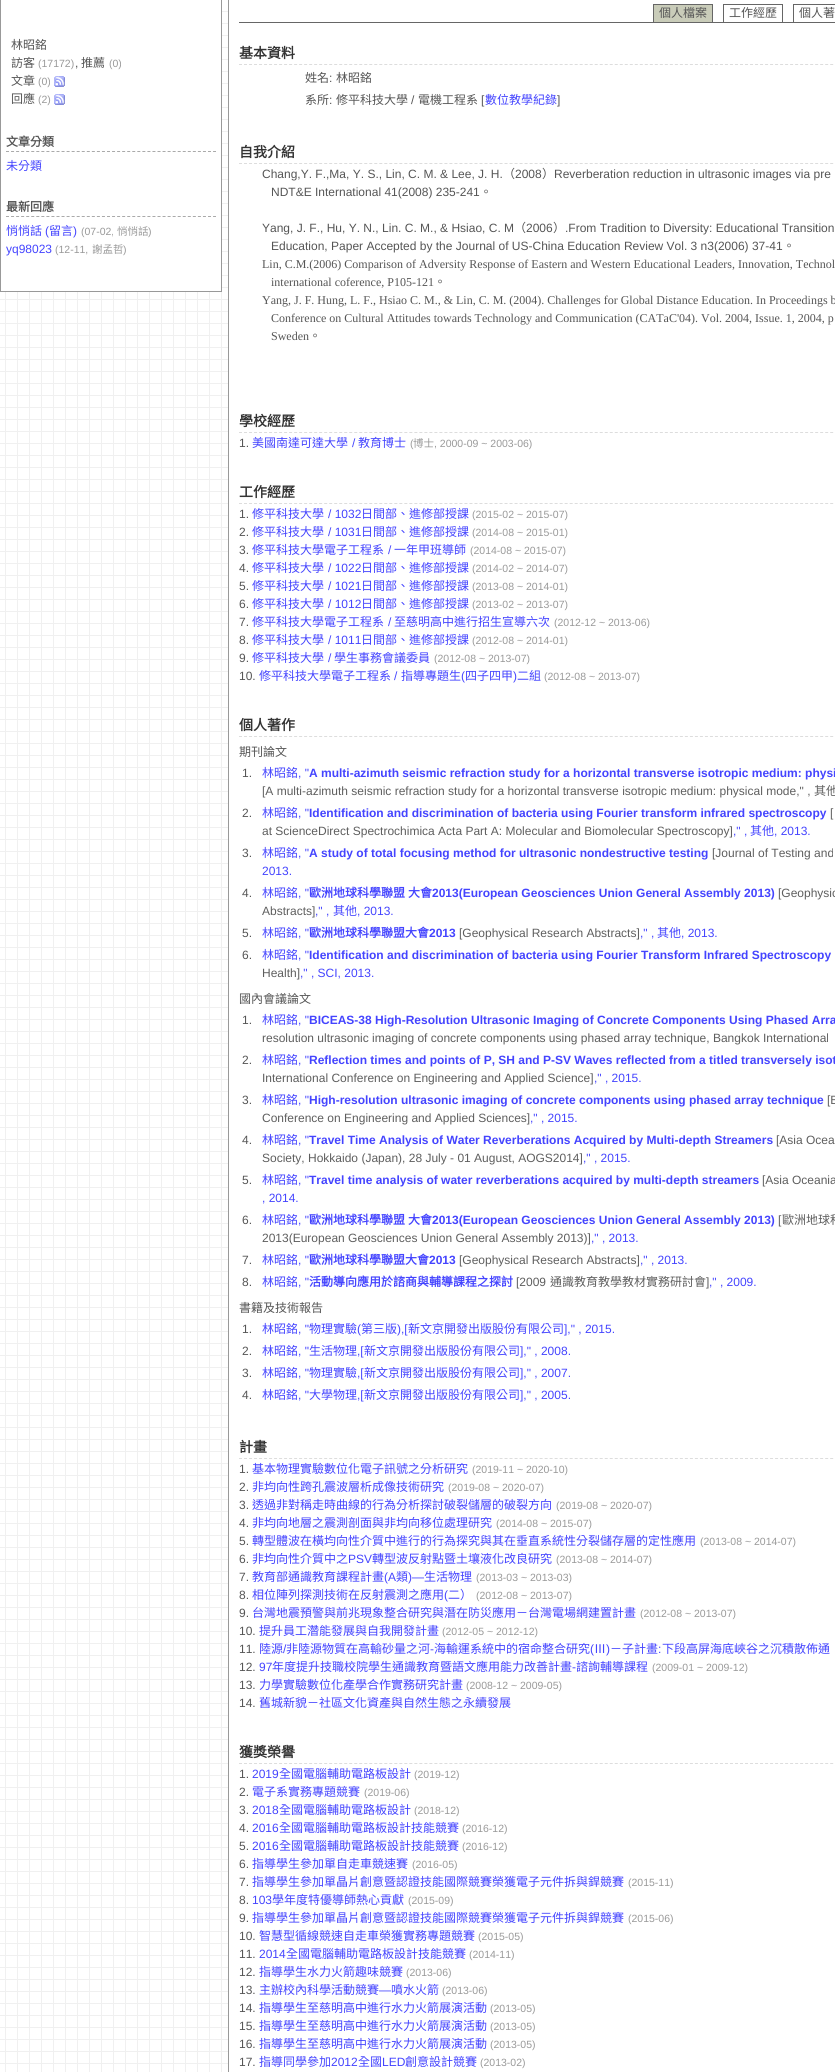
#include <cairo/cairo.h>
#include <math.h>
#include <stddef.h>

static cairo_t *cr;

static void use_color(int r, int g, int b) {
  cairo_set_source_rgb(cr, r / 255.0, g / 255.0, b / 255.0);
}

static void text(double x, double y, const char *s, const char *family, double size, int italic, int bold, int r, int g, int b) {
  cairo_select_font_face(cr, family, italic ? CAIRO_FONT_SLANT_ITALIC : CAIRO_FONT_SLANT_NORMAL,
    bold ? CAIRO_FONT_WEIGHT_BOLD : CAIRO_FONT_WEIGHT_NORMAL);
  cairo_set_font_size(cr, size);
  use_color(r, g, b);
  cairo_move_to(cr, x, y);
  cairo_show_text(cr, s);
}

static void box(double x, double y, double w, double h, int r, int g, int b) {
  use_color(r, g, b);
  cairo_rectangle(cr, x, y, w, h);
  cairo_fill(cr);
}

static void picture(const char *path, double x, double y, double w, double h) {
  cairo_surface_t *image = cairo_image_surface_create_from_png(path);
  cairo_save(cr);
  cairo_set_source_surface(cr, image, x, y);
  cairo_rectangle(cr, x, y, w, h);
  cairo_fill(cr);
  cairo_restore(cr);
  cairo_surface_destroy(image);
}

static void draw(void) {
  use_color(255, 255, 255);
  cairo_paint(cr);
  picture("img_01.png", 0, 0, 228, 2072);
  use_color(255, 255, 255);
  cairo_rectangle(cr, 0.5, -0.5, 221, 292);
  cairo_fill_preserve(cr);
  use_color(153, 153, 153);
  cairo_set_line_width(cr, 1);
  cairo_stroke(cr);
  picture("img_02.png", 54, 76, 11, 11);
  picture("img_02.png", 54, 94, 11, 11);
  cairo_new_path(cr);
  cairo_move_to(cr, 6, 151.5);
  cairo_line_to(cr, 216, 151.5);
  use_color(170, 170, 170);
  cairo_set_dash(cr, (double[]){3, 2.05}, 2, 0);
  cairo_stroke(cr);
  cairo_new_path(cr);
  cairo_move_to(cr, 6, 216.5);
  cairo_line_to(cr, 216, 216.5);
  cairo_stroke(cr);
  cairo_rectangle(cr, 228.5, -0.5, 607, 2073);
  use_color(153, 153, 153);
  cairo_set_dash(cr, NULL, 0, 0);
  cairo_stroke(cr);
  box(239, 22, 596, 1, 102, 102, 102);
  box(654, 5, 58, 17, 201, 204, 185);
  box(653, 4, 60, 1, 102, 102, 102);
  box(712, 4, 1, 18, 102, 102, 102);
  box(653, 4, 1, 18, 102, 102, 102);
  box(723, 4, 60, 1, 102, 102, 102);
  box(782, 4, 1, 18, 102, 102, 102);
  box(723, 4, 1, 18, 102, 102, 102);
  box(793, 4, 42, 1, 102, 102, 102);
  box(793, 4, 1, 18, 102, 102, 102);
  cairo_new_path(cr);
  cairo_move_to(cr, 239, 64.5);
  cairo_line_to(cr, 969, 64.5);
  use_color(221, 221, 221);
  cairo_set_dash(cr, (double[]){3, 2.01}, 2, 0);
  cairo_stroke(cr);
  cairo_new_path(cr);
  cairo_move_to(cr, 239, 163.5);
  cairo_line_to(cr, 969, 163.5);
  cairo_stroke(cr);
  cairo_new_path(cr);
  cairo_move_to(cr, 239, 432.5);
  cairo_line_to(cr, 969, 432.5);
  cairo_stroke(cr);
  cairo_new_path(cr);
  cairo_move_to(cr, 239, 503.5);
  cairo_line_to(cr, 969, 503.5);
  cairo_stroke(cr);
  cairo_new_path(cr);
  cairo_move_to(cr, 239, 736.5);
  cairo_line_to(cr, 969, 736.5);
  cairo_stroke(cr);
  cairo_new_path(cr);
  cairo_move_to(cr, 239, 1458.5);
  cairo_line_to(cr, 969, 1458.5);
  cairo_stroke(cr);
  cairo_new_path(cr);
  cairo_move_to(cr, 239, 1763.5);
  cairo_line_to(cr, 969, 1763.5);
  cairo_stroke(cr);
  text(11, 49, "林昭銘", "Noto Sans CJK TC", 12, 0, 0, 85, 85, 85);
  text(11, 67, "訪客", "Noto Sans CJK TC", 12, 0, 0, 85, 85, 85);
  text(38, 67, "(17172)", "Liberation Sans", 10.5, 0, 0, 153, 153, 153);
  text(75, 67, ",", "Liberation Sans", 12, 0, 0, 85, 85, 85);
  text(81, 67, "推薦", "Noto Sans CJK TC", 12, 0, 0, 85, 85, 85);
  text(109, 67, "(0)", "Liberation Sans", 10.5, 0, 0, 153, 153, 153);
  text(11, 85, "文章", "Noto Sans CJK TC", 12, 0, 0, 85, 85, 85);
  text(38, 85, "(0)", "Liberation Sans", 10.5, 0, 0, 153, 153, 153);
  text(11, 103, "回應", "Noto Sans CJK TC", 12, 0, 0, 85, 85, 85);
  text(38, 103, "(2)", "Liberation Sans", 10.5, 0, 0, 153, 153, 153);
  text(6, 146, "文章分類", "Noto Sans CJK TC", 12, 0, 1, 85, 85, 85);
  text(6, 170, "未分類", "Noto Sans CJK TC", 12, 0, 0, 68, 68, 255);
  text(6, 211, "最新回應", "Noto Sans CJK TC", 12, 0, 1, 85, 85, 85);
  text(6, 235, "悄悄話", "Noto Sans CJK TC", 12, 0, 0, 68, 68, 255);
  text(45, 235, "(", "Liberation Sans", 12, 0, 0, 68, 68, 255);
  text(49, 235, "留言", "Noto Sans CJK TC", 12, 0, 0, 68, 68, 255);
  text(73, 235, ")", "Liberation Sans", 12, 0, 0, 68, 68, 255);
  text(81, 235, "(07-02,", "Liberation Sans", 10.5, 0, 0, 153, 153, 153);
  text(117, 235, "悄悄話", "Noto Sans CJK TC", 10.5, 0, 0, 153, 153, 153);
  text(148, 235, ")", "Liberation Sans", 10.5, 0, 0, 153, 153, 153);
  text(6, 253, "yq98023", "Liberation Sans", 12, 0, 0, 68, 68, 255);
  text(55, 253, "(12-11,", "Liberation Sans", 10.5, 0, 0, 153, 153, 153);
  text(92, 253, "謝孟哲", "Noto Sans CJK TC", 10.5, 0, 0, 153, 153, 153);
  text(123, 253, ")", "Liberation Sans", 10.5, 0, 0, 153, 153, 153);
  text(659, 17, "個人檔案", "Noto Sans CJK TC", 12, 0, 0, 85, 85, 85);
  text(729, 17, "工作經歷", "Noto Sans CJK TC", 12, 0, 0, 85, 85, 85);
  text(799, 17, "個人著", "Noto Sans CJK TC", 12, 0, 0, 85, 85, 85);
  text(239, 58, "基本資料", "Noto Sans CJK TC", 14, 0, 1, 51, 51, 51);
  text(305, 82, "姓名", "Noto Sans CJK TC", 12, 0, 0, 85, 85, 85);
  text(329, 82, ":", "Liberation Sans", 12, 0, 0, 85, 85, 85);
  text(336, 82, "林昭銘", "Noto Sans CJK TC", 12, 0, 0, 85, 85, 85);
  text(305, 104, "系所", "Noto Sans CJK TC", 12, 0, 0, 85, 85, 85);
  text(329, 104, ":", "Liberation Sans", 12, 0, 0, 85, 85, 85);
  text(336, 104, "修平科技大學", "Noto Sans CJK TC", 12, 0, 0, 85, 85, 85);
  text(411, 104, "/", "Liberation Sans", 12, 0, 0, 85, 85, 85);
  text(418, 104, "電機工程系", "Noto Sans CJK TC", 12, 0, 0, 85, 85, 85);
  text(481, 104, "[", "Liberation Sans", 12, 0, 0, 85, 85, 85);
  text(485, 104, "數位教學紀錄", "Noto Sans CJK TC", 12, 0, 0, 68, 68, 255);
  text(557, 104, "]", "Liberation Sans", 12, 0, 0, 85, 85, 85);
  text(239, 157, "自我介紹", "Noto Sans CJK TC", 14, 0, 1, 51, 51, 51);
  text(262, 178, "Chang,Y. F.,Ma, Y. S., Lin, C. M. & Lee, J. H.", "Liberation Sans", 12, 0, 0, 85, 85, 85);
  text(503, 178, "（", "Noto Sans CJK TC", 12, 0, 0, 85, 85, 85);
  text(515, 178, "2008", "Liberation Sans", 12, 0, 0, 85, 85, 85);
  text(542, 178, "）", "Noto Sans CJK TC", 12, 0, 0, 85, 85, 85);
  text(554, 178, "Reverberation reduction in ultrasonic images via pre", "Liberation Sans", 12, 0, 0, 85, 85, 85);
  text(271, 196, "NDT&E International 41(2008) 235-241", "Liberation Sans", 12, 0, 0, 85, 85, 85);
  text(480, 196, "。", "Noto Sans CJK TC", 12, 0, 0, 85, 85, 85);
  text(262, 232, "Yang, J. F., Hu, Y. N., Lin. C. M., & Hsiao, C. M", "Liberation Sans", 12, 0, 0, 85, 85, 85);
  text(514, 232, "（", "Noto Sans CJK TC", 12, 0, 0, 85, 85, 85);
  text(526, 232, "2006", "Liberation Sans", 12, 0, 0, 85, 85, 85);
  text(553, 232, "）", "Noto Sans CJK TC", 12, 0, 0, 85, 85, 85);
  text(565, 232, ".From Tradition to Diversity: Educational Transition", "Liberation Sans", 12, 0, 0, 85, 85, 85);
  text(271, 250, "Education, Paper Accepted by the Journal of US-China Education Review Vol. 3 n3(2006) 37-41", "Liberation Sans", 12, 0, 0, 85, 85, 85);
  text(783, 250, "。", "Noto Sans CJK TC", 12, 0, 0, 85, 85, 85);
  text(262, 268, "Lin, C.M.(2006) Comparison of Adversity Response of Eastern and Western Educational Leaders, Innovation, Technol", "Liberation Serif", 12, 0, 0, 85, 85, 85);
  text(271, 286, "international coference, P105-121", "Liberation Serif", 12, 0, 0, 85, 85, 85);
  text(434, 286, "。", "Noto Sans CJK TC", 12, 0, 0, 85, 85, 85);
  text(262, 304, "Yang, J. F. Hung, L. F., Hsiao C. M., & Lin, C. M. (2004). Challenges for Global Distance Education. In Proceedings b", "Liberation Serif", 12, 0, 0, 85, 85, 85);
  text(271, 322, "Conference on Cultural Attitudes towards Technology and Communication (CATaC'04). Vol. 2004, Issue. 1, 2004, p", "Liberation Serif", 12, 0, 0, 85, 85, 85);
  text(271, 340, "Sweden", "Liberation Serif", 12, 0, 0, 85, 85, 85);
  text(309, 340, "。", "Noto Sans CJK TC", 12, 0, 0, 85, 85, 85);
  text(239, 426, "學校經歷", "Noto Sans CJK TC", 14, 0, 1, 51, 51, 51);
  text(239, 447, "1.", "Liberation Sans", 12, 0, 0, 85, 85, 85);
  text(252, 447, "美國南達可達大學", "Noto Sans CJK TC", 12, 0, 0, 68, 68, 255);
  text(352, 447, "/", "Liberation Sans", 12, 0, 0, 68, 68, 255);
  text(358, 447, "教育博士", "Noto Sans CJK TC", 12, 0, 0, 68, 68, 255);
  text(410, 447, "(", "Liberation Sans", 10.5, 0, 0, 153, 153, 153);
  text(413, 447, "博士", "Noto Sans CJK TC", 10.5, 0, 0, 153, 153, 153);
  text(434, 447, ", 2000-09 ~ 2003-06)", "Liberation Sans", 10.5, 0, 0, 153, 153, 153);
  text(239, 497, "工作經歷", "Noto Sans CJK TC", 14, 0, 1, 51, 51, 51);
  text(239, 518, "1.", "Liberation Sans", 12, 0, 0, 85, 85, 85);
  text(252, 518, "修平科技大學", "Noto Sans CJK TC", 12, 0, 0, 68, 68, 255);
  text(328, 518, "/ 1032", "Liberation Sans", 12, 0, 0, 68, 68, 255);
  text(361, 518, "日間部、進修部授課", "Noto Sans CJK TC", 12, 0, 0, 68, 68, 255);
  text(472, 518, "(2015-02 ~ 2015-07)", "Liberation Sans", 10.5, 0, 0, 153, 153, 153);
  text(239, 536, "2.", "Liberation Sans", 12, 0, 0, 85, 85, 85);
  text(252, 536, "修平科技大學", "Noto Sans CJK TC", 12, 0, 0, 68, 68, 255);
  text(328, 536, "/ 1031", "Liberation Sans", 12, 0, 0, 68, 68, 255);
  text(361, 536, "日間部、進修部授課", "Noto Sans CJK TC", 12, 0, 0, 68, 68, 255);
  text(472, 536, "(2014-08 ~ 2015-01)", "Liberation Sans", 10.5, 0, 0, 153, 153, 153);
  text(239, 554, "3.", "Liberation Sans", 12, 0, 0, 85, 85, 85);
  text(252, 554, "修平科技大學電子工程系", "Noto Sans CJK TC", 12, 0, 0, 68, 68, 255);
  text(388, 554, "/", "Liberation Sans", 12, 0, 0, 68, 68, 255);
  text(394, 554, "一年甲班導師", "Noto Sans CJK TC", 12, 0, 0, 68, 68, 255);
  text(470, 554, "(2014-08 ~ 2015-07)", "Liberation Sans", 10.5, 0, 0, 153, 153, 153);
  text(239, 572, "4.", "Liberation Sans", 12, 0, 0, 85, 85, 85);
  text(252, 572, "修平科技大學", "Noto Sans CJK TC", 12, 0, 0, 68, 68, 255);
  text(328, 572, "/ 1022", "Liberation Sans", 12, 0, 0, 68, 68, 255);
  text(361, 572, "日間部、進修部授課", "Noto Sans CJK TC", 12, 0, 0, 68, 68, 255);
  text(472, 572, "(2014-02 ~ 2014-07)", "Liberation Sans", 10.5, 0, 0, 153, 153, 153);
  text(239, 590, "5.", "Liberation Sans", 12, 0, 0, 85, 85, 85);
  text(252, 590, "修平科技大學", "Noto Sans CJK TC", 12, 0, 0, 68, 68, 255);
  text(328, 590, "/ 1021", "Liberation Sans", 12, 0, 0, 68, 68, 255);
  text(361, 590, "日間部、進修部授課", "Noto Sans CJK TC", 12, 0, 0, 68, 68, 255);
  text(472, 590, "(2013-08 ~ 2014-01)", "Liberation Sans", 10.5, 0, 0, 153, 153, 153);
  text(239, 608, "6.", "Liberation Sans", 12, 0, 0, 85, 85, 85);
  text(252, 608, "修平科技大學", "Noto Sans CJK TC", 12, 0, 0, 68, 68, 255);
  text(328, 608, "/ 1012", "Liberation Sans", 12, 0, 0, 68, 68, 255);
  text(361, 608, "日間部、進修部授課", "Noto Sans CJK TC", 12, 0, 0, 68, 68, 255);
  text(472, 608, "(2013-02 ~ 2013-07)", "Liberation Sans", 10.5, 0, 0, 153, 153, 153);
  text(239, 626, "7.", "Liberation Sans", 12, 0, 0, 85, 85, 85);
  text(252, 626, "修平科技大學電子工程系", "Noto Sans CJK TC", 12, 0, 0, 68, 68, 255);
  text(388, 626, "/", "Liberation Sans", 12, 0, 0, 68, 68, 255);
  text(394, 626, "至慈明高中進行招生宣導六次", "Noto Sans CJK TC", 12, 0, 0, 68, 68, 255);
  text(554, 626, "(2012-12 ~ 2013-06)", "Liberation Sans", 10.5, 0, 0, 153, 153, 153);
  text(239, 644, "8.", "Liberation Sans", 12, 0, 0, 85, 85, 85);
  text(252, 644, "修平科技大學", "Noto Sans CJK TC", 12, 0, 0, 68, 68, 255);
  text(328, 644, "/ 1011", "Liberation Sans", 12, 0, 0, 68, 68, 255);
  text(361, 644, "日間部、進修部授課", "Noto Sans CJK TC", 12, 0, 0, 68, 68, 255);
  text(472, 644, "(2012-08 ~ 2014-01)", "Liberation Sans", 10.5, 0, 0, 153, 153, 153);
  text(239, 662, "9.", "Liberation Sans", 12, 0, 0, 85, 85, 85);
  text(252, 662, "修平科技大學", "Noto Sans CJK TC", 12, 0, 0, 68, 68, 255);
  text(328, 662, "/", "Liberation Sans", 12, 0, 0, 68, 68, 255);
  text(334, 662, "學生事務會議委員", "Noto Sans CJK TC", 12, 0, 0, 68, 68, 255);
  text(434, 662, "(2012-08 ~ 2013-07)", "Liberation Sans", 10.5, 0, 0, 153, 153, 153);
  text(239, 680, "10.", "Liberation Sans", 12, 0, 0, 85, 85, 85);
  text(259, 680, "修平科技大學電子工程系", "Noto Sans CJK TC", 12, 0, 0, 68, 68, 255);
  text(394, 680, "/", "Liberation Sans", 12, 0, 0, 68, 68, 255);
  text(401, 680, "指導專題生", "Noto Sans CJK TC", 12, 0, 0, 68, 68, 255);
  text(461, 680, "(", "Liberation Sans", 12, 0, 0, 68, 68, 255);
  text(465, 680, "四子四甲", "Noto Sans CJK TC", 12, 0, 0, 68, 68, 255);
  text(513, 680, ")", "Liberation Sans", 12, 0, 0, 68, 68, 255);
  text(517, 680, "二組", "Noto Sans CJK TC", 12, 0, 0, 68, 68, 255);
  text(544, 680, "(2012-08 ~ 2013-07)", "Liberation Sans", 10.5, 0, 0, 153, 153, 153);
  text(239, 730, "個人著作", "Noto Sans CJK TC", 14, 0, 1, 51, 51, 51);
  text(239, 756, "期刊論文", "Noto Sans CJK TC", 12, 0, 0, 85, 85, 85);
  text(242, 777, "1.", "Liberation Sans", 12, 0, 0, 85, 85, 85);
  text(262, 777, "林昭銘", "Noto Sans CJK TC", 12, 0, 0, 68, 68, 255);
  text(298, 777, ", \"", "Liberation Sans", 12, 0, 0, 68, 68, 255);
  text(309, 777, "A multi-azimuth seismic refraction study for a horizontal transverse isotropic medium: physi", "Liberation Sans", 12, 0, 1, 68, 68, 255);
  text(262, 795, "[A multi-azimuth seismic refraction study for a horizontal transverse isotropic medium: physical mode,\" ,", "Liberation Sans", 12, 0, 0, 94, 94, 94);
  text(814, 795, "其他", "Noto Sans CJK TC", 12, 0, 0, 94, 94, 94);
  text(242, 817, "2.", "Liberation Sans", 12, 0, 0, 85, 85, 85);
  text(262, 817, "林昭銘", "Noto Sans CJK TC", 12, 0, 0, 68, 68, 255);
  text(298, 817, ", \"", "Liberation Sans", 12, 0, 0, 68, 68, 255);
  text(309, 817, "Identification and discrimination of bacteria using Fourier transform infrared spectroscopy", "Liberation Sans", 12, 0, 1, 68, 68, 255);
  text(830, 817, "[", "Liberation Sans", 12, 0, 0, 94, 94, 94);
  text(262, 835, "at ScienceDirect Spectrochimica Acta Part A: Molecular and Biomolecular Spectroscopy]", "Liberation Sans", 12, 0, 0, 94, 94, 94);
  text(733, 835, ",\" ,", "Liberation Sans", 12, 0, 0, 68, 68, 255);
  text(750, 835, "其他", "Noto Sans CJK TC", 12, 0, 0, 68, 68, 255);
  text(774, 835, ", 2013.", "Liberation Sans", 12, 0, 0, 68, 68, 255);
  text(242, 857, "3.", "Liberation Sans", 12, 0, 0, 85, 85, 85);
  text(262, 857, "林昭銘", "Noto Sans CJK TC", 12, 0, 0, 68, 68, 255);
  text(298, 857, ", \"", "Liberation Sans", 12, 0, 0, 68, 68, 255);
  text(309, 857, "A study of total focusing method for ultrasonic nondestructive testing", "Liberation Sans", 12, 0, 1, 68, 68, 255);
  text(712, 857, "[Journal of Testing and", "Liberation Sans", 12, 0, 0, 94, 94, 94);
  text(262, 875, "2013.", "Liberation Sans", 12, 0, 0, 68, 68, 255);
  text(242, 897, "4.", "Liberation Sans", 12, 0, 0, 85, 85, 85);
  text(262, 897, "林昭銘", "Noto Sans CJK TC", 12, 0, 0, 68, 68, 255);
  text(298, 897, ", \"", "Liberation Sans", 12, 0, 0, 68, 68, 255);
  text(309, 897, "歐洲地球科學聯盟", "Noto Sans CJK TC", 12, 0, 1, 68, 68, 255);
  text(408, 897, "大會", "Noto Sans CJK TC", 12, 0, 1, 68, 68, 255);
  text(432, 897, "2013(European Geosciences Union General Assembly 2013)", "Liberation Sans", 12, 0, 1, 68, 68, 255);
  text(778, 897, "[Geophysic", "Liberation Sans", 12, 0, 0, 94, 94, 94);
  text(262, 915, "Abstracts]", "Liberation Sans", 12, 0, 0, 94, 94, 94);
  text(315, 915, ",\" ,", "Liberation Sans", 12, 0, 0, 68, 68, 255);
  text(333, 915, "其他", "Noto Sans CJK TC", 12, 0, 0, 68, 68, 255);
  text(357, 915, ", 2013.", "Liberation Sans", 12, 0, 0, 68, 68, 255);
  text(242, 937, "5.", "Liberation Sans", 12, 0, 0, 85, 85, 85);
  text(262, 937, "林昭銘", "Noto Sans CJK TC", 12, 0, 0, 68, 68, 255);
  text(298, 937, ", \"", "Liberation Sans", 12, 0, 0, 68, 68, 255);
  text(309, 937, "歐洲地球科學聯盟大會", "Noto Sans CJK TC", 12, 0, 1, 68, 68, 255);
  text(429, 937, "2013", "Liberation Sans", 12, 0, 1, 68, 68, 255);
  text(459, 937, "[Geophysical Research Abstracts]", "Liberation Sans", 12, 0, 0, 94, 94, 94);
  text(640, 937, ",\" ,", "Liberation Sans", 12, 0, 0, 68, 68, 255);
  text(657, 937, "其他", "Noto Sans CJK TC", 12, 0, 0, 68, 68, 255);
  text(681, 937, ", 2013.", "Liberation Sans", 12, 0, 0, 68, 68, 255);
  text(242, 959, "6.", "Liberation Sans", 12, 0, 0, 85, 85, 85);
  text(262, 959, "林昭銘", "Noto Sans CJK TC", 12, 0, 0, 68, 68, 255);
  text(298, 959, ", \"", "Liberation Sans", 12, 0, 0, 68, 68, 255);
  text(309, 959, "Identification and discrimination of bacteria using Fourier Transform Infrared Spectroscopy", "Liberation Sans", 12, 0, 1, 68, 68, 255);
  text(262, 977, "Health]", "Liberation Sans", 12, 0, 0, 94, 94, 94);
  text(300, 977, ",\" , SCI, 2013.", "Liberation Sans", 12, 0, 0, 68, 68, 255);
  text(239, 1003, "國內會議論文", "Noto Sans CJK TC", 12, 0, 0, 85, 85, 85);
  text(242, 1024, "1.", "Liberation Sans", 12, 0, 0, 85, 85, 85);
  text(262, 1024, "林昭銘", "Noto Sans CJK TC", 12, 0, 0, 68, 68, 255);
  text(298, 1024, ", \"", "Liberation Sans", 12, 0, 0, 68, 68, 255);
  text(309, 1024, "BICEAS-38 High-Resolution Ultrasonic Imaging of Concrete Components Using Phased Arra", "Liberation Sans", 12, 0, 1, 68, 68, 255);
  text(262, 1042, "resolution ultrasonic imaging of concrete components using phased array technique, Bangkok International", "Liberation Sans", 12, 0, 0, 94, 94, 94);
  text(242, 1064, "2.", "Liberation Sans", 12, 0, 0, 85, 85, 85);
  text(262, 1064, "林昭銘", "Noto Sans CJK TC", 12, 0, 0, 68, 68, 255);
  text(298, 1064, ", \"", "Liberation Sans", 12, 0, 0, 68, 68, 255);
  text(309, 1064, "Reflection times and points of P, SH and P-SV Waves reflected from a titled transversely isot", "Liberation Sans", 12, 0, 1, 68, 68, 255);
  text(262, 1082, "International Conference on Engineering and Applied Science]", "Liberation Sans", 12, 0, 0, 94, 94, 94);
  text(594, 1082, ",\" , 2015.", "Liberation Sans", 12, 0, 0, 68, 68, 255);
  text(242, 1104, "3.", "Liberation Sans", 12, 0, 0, 85, 85, 85);
  text(262, 1104, "林昭銘", "Noto Sans CJK TC", 12, 0, 0, 68, 68, 255);
  text(298, 1104, ", \"", "Liberation Sans", 12, 0, 0, 68, 68, 255);
  text(309, 1104, "High-resolution ultrasonic imaging of concrete components using phased array technique", "Liberation Sans", 12, 0, 1, 68, 68, 255);
  text(827, 1104, "[B", "Liberation Sans", 12, 0, 0, 94, 94, 94);
  text(262, 1122, "Conference on Engineering and Applied Sciences]", "Liberation Sans", 12, 0, 0, 94, 94, 94);
  text(530, 1122, ",\" , 2015.", "Liberation Sans", 12, 0, 0, 68, 68, 255);
  text(242, 1144, "4.", "Liberation Sans", 12, 0, 0, 85, 85, 85);
  text(262, 1144, "林昭銘", "Noto Sans CJK TC", 12, 0, 0, 68, 68, 255);
  text(298, 1144, ", \"", "Liberation Sans", 12, 0, 0, 68, 68, 255);
  text(309, 1144, "Travel Time Analysis of Water Reverberations Acquired by Multi-depth Streamers", "Liberation Sans", 12, 0, 1, 68, 68, 255);
  text(776, 1144, "[Asia Ocea", "Liberation Sans", 12, 0, 0, 94, 94, 94);
  text(262, 1162, "Society, Hokkaido (Japan), 28 July - 01 August, AOGS2014]", "Liberation Sans", 12, 0, 0, 94, 94, 94);
  text(583, 1162, ",\" , 2015.", "Liberation Sans", 12, 0, 0, 68, 68, 255);
  text(242, 1184, "5.", "Liberation Sans", 12, 0, 0, 85, 85, 85);
  text(262, 1184, "林昭銘", "Noto Sans CJK TC", 12, 0, 0, 68, 68, 255);
  text(298, 1184, ", \"", "Liberation Sans", 12, 0, 0, 68, 68, 255);
  text(309, 1184, "Travel time analysis of water reverberations acquired by multi-depth streamers", "Liberation Sans", 12, 0, 1, 68, 68, 255);
  text(762, 1184, "[Asia Oceania", "Liberation Sans", 12, 0, 0, 94, 94, 94);
  text(262, 1202, ", 2014.", "Liberation Sans", 12, 0, 0, 68, 68, 255);
  text(242, 1224, "6.", "Liberation Sans", 12, 0, 0, 85, 85, 85);
  text(262, 1224, "林昭銘", "Noto Sans CJK TC", 12, 0, 0, 68, 68, 255);
  text(298, 1224, ", \"", "Liberation Sans", 12, 0, 0, 68, 68, 255);
  text(309, 1224, "歐洲地球科學聯盟", "Noto Sans CJK TC", 12, 0, 1, 68, 68, 255);
  text(408, 1224, "大會", "Noto Sans CJK TC", 12, 0, 1, 68, 68, 255);
  text(432, 1224, "2013(European Geosciences Union General Assembly 2013)", "Liberation Sans", 12, 0, 1, 68, 68, 255);
  text(778, 1224, "[", "Liberation Sans", 12, 0, 0, 94, 94, 94);
  text(782, 1224, "歐洲地球科", "Noto Sans CJK TC", 12, 0, 0, 94, 94, 94);
  text(262, 1242, "2013(European Geosciences Union General Assembly 2013)]", "Liberation Sans", 12, 0, 0, 94, 94, 94);
  text(591, 1242, ",\" , 2013.", "Liberation Sans", 12, 0, 0, 68, 68, 255);
  text(242, 1264, "7.", "Liberation Sans", 12, 0, 0, 85, 85, 85);
  text(262, 1264, "林昭銘", "Noto Sans CJK TC", 12, 0, 0, 68, 68, 255);
  text(298, 1264, ", \"", "Liberation Sans", 12, 0, 0, 68, 68, 255);
  text(309, 1264, "歐洲地球科學聯盟大會", "Noto Sans CJK TC", 12, 0, 1, 68, 68, 255);
  text(429, 1264, "2013", "Liberation Sans", 12, 0, 1, 68, 68, 255);
  text(459, 1264, "[Geophysical Research Abstracts]", "Liberation Sans", 12, 0, 0, 94, 94, 94);
  text(640, 1264, ",\" , 2013.", "Liberation Sans", 12, 0, 0, 68, 68, 255);
  text(242, 1286, "8.", "Liberation Sans", 12, 0, 0, 85, 85, 85);
  text(262, 1286, "林昭銘", "Noto Sans CJK TC", 12, 0, 0, 68, 68, 255);
  text(298, 1286, ", \"", "Liberation Sans", 12, 0, 0, 68, 68, 255);
  text(309, 1286, "活動導向應用於諮商與輔導課程之探討", "Noto Sans CJK TC", 12, 0, 1, 68, 68, 255);
  text(516, 1286, "[2009", "Liberation Sans", 12, 0, 0, 94, 94, 94);
  text(550, 1286, "通識教育教學教材實務研討會", "Noto Sans CJK TC", 12, 0, 0, 94, 94, 94);
  text(706, 1286, "]", "Liberation Sans", 12, 0, 0, 94, 94, 94);
  text(709, 1286, ",\" , 2009.", "Liberation Sans", 12, 0, 0, 68, 68, 255);
  text(239, 1312, "書籍及技術報告", "Noto Sans CJK TC", 12, 0, 0, 85, 85, 85);
  text(242, 1333, "1.", "Liberation Sans", 12, 0, 0, 85, 85, 85);
  text(262, 1333, "林昭銘", "Noto Sans CJK TC", 12, 0, 0, 68, 68, 255);
  text(298, 1333, ", \"", "Liberation Sans", 12, 0, 0, 68, 68, 255);
  text(309, 1333, "物理實驗", "Noto Sans CJK TC", 12, 0, 0, 68, 68, 255);
  text(357, 1333, "(", "Liberation Sans", 12, 0, 0, 68, 68, 255);
  text(361, 1333, "第三版", "Noto Sans CJK TC", 12, 0, 0, 68, 68, 255);
  text(397, 1333, "),[", "Liberation Sans", 12, 0, 0, 68, 68, 255);
  text(408, 1333, "新文京開發出版股份有限公司", "Noto Sans CJK TC", 12, 0, 0, 68, 68, 255);
  text(564, 1333, "],\" , 2015.", "Liberation Sans", 12, 0, 0, 68, 68, 255);
  text(242, 1355, "2.", "Liberation Sans", 12, 0, 0, 85, 85, 85);
  text(262, 1355, "林昭銘", "Noto Sans CJK TC", 12, 0, 0, 68, 68, 255);
  text(298, 1355, ", \"", "Liberation Sans", 12, 0, 0, 68, 68, 255);
  text(309, 1355, "生活物理", "Noto Sans CJK TC", 12, 0, 0, 68, 68, 255);
  text(357, 1355, ",[", "Liberation Sans", 12, 0, 0, 68, 68, 255);
  text(364, 1355, "新文京開發出版股份有限公司", "Noto Sans CJK TC", 12, 0, 0, 68, 68, 255);
  text(520, 1355, "],\" , 2008.", "Liberation Sans", 12, 0, 0, 68, 68, 255);
  text(242, 1377, "3.", "Liberation Sans", 12, 0, 0, 85, 85, 85);
  text(262, 1377, "林昭銘", "Noto Sans CJK TC", 12, 0, 0, 68, 68, 255);
  text(298, 1377, ", \"", "Liberation Sans", 12, 0, 0, 68, 68, 255);
  text(309, 1377, "物理實驗", "Noto Sans CJK TC", 12, 0, 0, 68, 68, 255);
  text(357, 1377, ",[", "Liberation Sans", 12, 0, 0, 68, 68, 255);
  text(364, 1377, "新文京開發出版股份有限公司", "Noto Sans CJK TC", 12, 0, 0, 68, 68, 255);
  text(520, 1377, "],\" , 2007.", "Liberation Sans", 12, 0, 0, 68, 68, 255);
  text(242, 1399, "4.", "Liberation Sans", 12, 0, 0, 85, 85, 85);
  text(262, 1399, "林昭銘", "Noto Sans CJK TC", 12, 0, 0, 68, 68, 255);
  text(298, 1399, ", \"", "Liberation Sans", 12, 0, 0, 68, 68, 255);
  text(309, 1399, "大學物理", "Noto Sans CJK TC", 12, 0, 0, 68, 68, 255);
  text(357, 1399, ",[", "Liberation Sans", 12, 0, 0, 68, 68, 255);
  text(364, 1399, "新文京開發出版股份有限公司", "Noto Sans CJK TC", 12, 0, 0, 68, 68, 255);
  text(520, 1399, "],\" , 2005.", "Liberation Sans", 12, 0, 0, 68, 68, 255);
  text(239, 1452, "計畫", "Noto Sans CJK TC", 14, 0, 1, 51, 51, 51);
  text(239, 1473, "1.", "Liberation Sans", 12, 0, 0, 85, 85, 85);
  text(252, 1473, "基本物理實驗數位化電子訊號之分析研究", "Noto Sans CJK TC", 12, 0, 0, 68, 68, 255);
  text(472, 1473, "(2019-11 ~ 2020-10)", "Liberation Sans", 10.5, 0, 0, 153, 153, 153);
  text(239, 1491, "2.", "Liberation Sans", 12, 0, 0, 85, 85, 85);
  text(252, 1491, "非均向性跨孔震波層析成像技術研究", "Noto Sans CJK TC", 12, 0, 0, 68, 68, 255);
  text(448, 1491, "(2019-08 ~ 2020-07)", "Liberation Sans", 10.5, 0, 0, 153, 153, 153);
  text(239, 1509, "3.", "Liberation Sans", 12, 0, 0, 85, 85, 85);
  text(252, 1509, "透過非對稱走時曲線的行為分析探討破裂儲層的破裂方向", "Noto Sans CJK TC", 12, 0, 0, 68, 68, 255);
  text(556, 1509, "(2019-08 ~ 2020-07)", "Liberation Sans", 10.5, 0, 0, 153, 153, 153);
  text(239, 1527, "4.", "Liberation Sans", 12, 0, 0, 85, 85, 85);
  text(252, 1527, "非均向地層之震測剖面與非均向移位處理研究", "Noto Sans CJK TC", 12, 0, 0, 68, 68, 255);
  text(496, 1527, "(2014-08 ~ 2015-07)", "Liberation Sans", 10.5, 0, 0, 153, 153, 153);
  text(239, 1545, "5.", "Liberation Sans", 12, 0, 0, 85, 85, 85);
  text(252, 1545, "轉型體波在橫均向性介質中進行的行為探究與其在垂直系統性分裂儲存層的定性應用", "Noto Sans CJK TC", 12, 0, 0, 68, 68, 255);
  text(700, 1545, "(2013-08 ~ 2014-07)", "Liberation Sans", 10.5, 0, 0, 153, 153, 153);
  text(239, 1563, "6.", "Liberation Sans", 12, 0, 0, 85, 85, 85);
  text(252, 1563, "非均向性介質中之", "Noto Sans CJK TC", 12, 0, 0, 68, 68, 255);
  text(348, 1563, "PSV", "Liberation Sans", 12, 0, 0, 68, 68, 255);
  text(372, 1563, "轉型波反射點暨土壤液化改良研究", "Noto Sans CJK TC", 12, 0, 0, 68, 68, 255);
  text(556, 1563, "(2013-08 ~ 2014-07)", "Liberation Sans", 10.5, 0, 0, 153, 153, 153);
  text(239, 1581, "7.", "Liberation Sans", 12, 0, 0, 85, 85, 85);
  text(252, 1581, "教育部通識教育課程計畫", "Noto Sans CJK TC", 12, 0, 0, 68, 68, 255);
  text(384, 1581, "(A", "Liberation Sans", 12, 0, 0, 68, 68, 255);
  text(396, 1581, "類", "Noto Sans CJK TC", 12, 0, 0, 68, 68, 255);
  text(408, 1581, ")—", "Liberation Sans", 12, 0, 0, 68, 68, 255);
  text(424, 1581, "生活物理", "Noto Sans CJK TC", 12, 0, 0, 68, 68, 255);
  text(476, 1581, "(2013-03 ~ 2013-03)", "Liberation Sans", 10.5, 0, 0, 153, 153, 153);
  text(239, 1599, "8.", "Liberation Sans", 12, 0, 0, 85, 85, 85);
  text(252, 1599, "相位陣列探測技術在反射震測之應用", "Noto Sans CJK TC", 12, 0, 0, 68, 68, 255);
  text(444, 1599, "(", "Liberation Sans", 12, 0, 0, 68, 68, 255);
  text(448, 1599, "二）", "Noto Sans CJK TC", 12, 0, 0, 68, 68, 255);
  text(476, 1599, "(2012-08 ~ 2013-07)", "Liberation Sans", 10.5, 0, 0, 153, 153, 153);
  text(239, 1617, "9.", "Liberation Sans", 12, 0, 0, 85, 85, 85);
  text(252, 1617, "台灣地震預警與前兆現象整合研究與潛在防災應用－台灣電場網建置計畫", "Noto Sans CJK TC", 12, 0, 0, 68, 68, 255);
  text(640, 1617, "(2012-08 ~ 2013-07)", "Liberation Sans", 10.5, 0, 0, 153, 153, 153);
  text(239, 1635, "10.", "Liberation Sans", 12, 0, 0, 85, 85, 85);
  text(259, 1635, "提升員工濳能發展與自我開發計畫", "Noto Sans CJK TC", 12, 0, 0, 68, 68, 255);
  text(442, 1635, "(2012-05 ~ 2012-12)", "Liberation Sans", 10.5, 0, 0, 153, 153, 153);
  text(239, 1653, "11.", "Liberation Sans", 12, 0, 0, 85, 85, 85);
  text(259, 1653, "陸源", "Noto Sans CJK TC", 12, 0, 0, 68, 68, 255);
  text(283, 1653, "/", "Liberation Sans", 12, 0, 0, 68, 68, 255);
  text(286, 1653, "非陸源物質在高輸砂量之河", "Noto Sans CJK TC", 12, 0, 0, 68, 68, 255);
  text(430, 1653, "-", "Liberation Sans", 12, 0, 0, 68, 68, 255);
  text(434, 1653, "海輸運系統中的宿命整合研究", "Noto Sans CJK TC", 12, 0, 0, 68, 68, 255);
  text(590, 1653, "(", "Liberation Sans", 12, 0, 0, 68, 68, 255);
  text(594, 1653, "Ⅲ", "Noto Sans CJK TC", 12, 0, 0, 68, 68, 255);
  text(606, 1653, ")", "Liberation Sans", 12, 0, 0, 68, 68, 255);
  text(610, 1653, "－子計畫", "Noto Sans CJK TC", 12, 0, 0, 68, 68, 255);
  text(658, 1653, ":", "Liberation Sans", 12, 0, 0, 68, 68, 255);
  text(662, 1653, "下段高屏海底峽谷之沉積散佈通", "Noto Sans CJK TC", 12, 0, 0, 68, 68, 255);
  text(239, 1671, "12.", "Liberation Sans", 12, 0, 0, 85, 85, 85);
  text(259, 1671, "97", "Liberation Sans", 12, 0, 0, 68, 68, 255);
  text(272, 1671, "年度提升技職校院學生通識教育暨語文應用能力改善計畫", "Noto Sans CJK TC", 12, 0, 0, 68, 68, 255);
  text(572, 1671, "-", "Liberation Sans", 12, 0, 0, 68, 68, 255);
  text(576, 1671, "諮詢輔導課程", "Noto Sans CJK TC", 12, 0, 0, 68, 68, 255);
  text(652, 1671, "(2009-01 ~ 2009-12)", "Liberation Sans", 10.5, 0, 0, 153, 153, 153);
  text(239, 1689, "13.", "Liberation Sans", 12, 0, 0, 85, 85, 85);
  text(259, 1689, "力學實驗數位化產學合作實務研究計畫", "Noto Sans CJK TC", 12, 0, 0, 68, 68, 255);
  text(466, 1689, "(2008-12 ~ 2009-05)", "Liberation Sans", 10.5, 0, 0, 153, 153, 153);
  text(239, 1707, "14.", "Liberation Sans", 12, 0, 0, 85, 85, 85);
  text(259, 1707, "舊城新貌－社區文化資產與自然生態之永續發展", "Noto Sans CJK TC", 12, 0, 0, 68, 68, 255);
  text(239, 1757, "獲獎榮譽", "Noto Sans CJK TC", 14, 0, 1, 51, 51, 51);
  text(239, 1778, "1.", "Liberation Sans", 12, 0, 0, 85, 85, 85);
  text(252, 1778, "2019", "Liberation Sans", 12, 0, 0, 68, 68, 255);
  text(279, 1778, "全國電腦輔助電路板設計", "Noto Sans CJK TC", 12, 0, 0, 68, 68, 255);
  text(414, 1778, "(2019-12)", "Liberation Sans", 10.5, 0, 0, 153, 153, 153);
  text(239, 1796, "2.", "Liberation Sans", 12, 0, 0, 85, 85, 85);
  text(252, 1796, "電子系實務專題競賽", "Noto Sans CJK TC", 12, 0, 0, 68, 68, 255);
  text(364, 1796, "(2019-06)", "Liberation Sans", 10.5, 0, 0, 153, 153, 153);
  text(239, 1814, "3.", "Liberation Sans", 12, 0, 0, 85, 85, 85);
  text(252, 1814, "2018", "Liberation Sans", 12, 0, 0, 68, 68, 255);
  text(279, 1814, "全國電腦輔助電路板設計", "Noto Sans CJK TC", 12, 0, 0, 68, 68, 255);
  text(414, 1814, "(2018-12)", "Liberation Sans", 10.5, 0, 0, 153, 153, 153);
  text(239, 1832, "4.", "Liberation Sans", 12, 0, 0, 85, 85, 85);
  text(252, 1832, "2016", "Liberation Sans", 12, 0, 0, 68, 68, 255);
  text(279, 1832, "全國電腦輔助電路板設計技能競賽", "Noto Sans CJK TC", 12, 0, 0, 68, 68, 255);
  text(462, 1832, "(2016-12)", "Liberation Sans", 10.5, 0, 0, 153, 153, 153);
  text(239, 1850, "5.", "Liberation Sans", 12, 0, 0, 85, 85, 85);
  text(252, 1850, "2016", "Liberation Sans", 12, 0, 0, 68, 68, 255);
  text(279, 1850, "全國電腦輔助電路板設計技能競賽", "Noto Sans CJK TC", 12, 0, 0, 68, 68, 255);
  text(462, 1850, "(2016-12)", "Liberation Sans", 10.5, 0, 0, 153, 153, 153);
  text(239, 1868, "6.", "Liberation Sans", 12, 0, 0, 85, 85, 85);
  text(252, 1868, "指導學生參加單自走車競速賽", "Noto Sans CJK TC", 12, 0, 0, 68, 68, 255);
  text(412, 1868, "(2016-05)", "Liberation Sans", 10.5, 0, 0, 153, 153, 153);
  text(239, 1886, "7.", "Liberation Sans", 12, 0, 0, 85, 85, 85);
  text(252, 1886, "指導學生參加單晶片創意暨認證技能國際競賽榮獲電子元件拆與銲競賽", "Noto Sans CJK TC", 12, 0, 0, 68, 68, 255);
  text(628, 1886, "(2015-11)", "Liberation Sans", 10.5, 0, 0, 153, 153, 153);
  text(239, 1904, "8.", "Liberation Sans", 12, 0, 0, 85, 85, 85);
  text(252, 1904, "103", "Liberation Sans", 12, 0, 0, 68, 68, 255);
  text(272, 1904, "學年度特優導師熱心貢獻", "Noto Sans CJK TC", 12, 0, 0, 68, 68, 255);
  text(408, 1904, "(2015-09)", "Liberation Sans", 10.5, 0, 0, 153, 153, 153);
  text(239, 1922, "9.", "Liberation Sans", 12, 0, 0, 85, 85, 85);
  text(252, 1922, "指導學生參加單晶片創意暨認證技能國際競賽榮獲電子元件拆與銲競賽", "Noto Sans CJK TC", 12, 0, 0, 68, 68, 255);
  text(628, 1922, "(2015-06)", "Liberation Sans", 10.5, 0, 0, 153, 153, 153);
  text(239, 1940, "10.", "Liberation Sans", 12, 0, 0, 85, 85, 85);
  text(259, 1940, "智慧型循線競速自走車榮獲實務專題競賽", "Noto Sans CJK TC", 12, 0, 0, 68, 68, 255);
  text(478, 1940, "(2015-05)", "Liberation Sans", 10.5, 0, 0, 153, 153, 153);
  text(239, 1958, "11.", "Liberation Sans", 12, 0, 0, 85, 85, 85);
  text(259, 1958, "2014", "Liberation Sans", 12, 0, 0, 68, 68, 255);
  text(286, 1958, "全國電腦輔助電路板設計技能競賽", "Noto Sans CJK TC", 12, 0, 0, 68, 68, 255);
  text(469, 1958, "(2014-11)", "Liberation Sans", 10.5, 0, 0, 153, 153, 153);
  text(239, 1976, "12.", "Liberation Sans", 12, 0, 0, 85, 85, 85);
  text(259, 1976, "指導學生水力火箭趣味競賽", "Noto Sans CJK TC", 12, 0, 0, 68, 68, 255);
  text(406, 1976, "(2013-06)", "Liberation Sans", 10.5, 0, 0, 153, 153, 153);
  text(239, 1994, "13.", "Liberation Sans", 12, 0, 0, 85, 85, 85);
  text(259, 1994, "主辦校內科學活動競賽", "Noto Sans CJK TC", 12, 0, 0, 68, 68, 255);
  text(379, 1994, "—", "Liberation Sans", 12, 0, 0, 68, 68, 255);
  text(391, 1994, "噴水火箭", "Noto Sans CJK TC", 12, 0, 0, 68, 68, 255);
  text(442, 1994, "(2013-06)", "Liberation Sans", 10.5, 0, 0, 153, 153, 153);
  text(239, 2012, "14.", "Liberation Sans", 12, 0, 0, 85, 85, 85);
  text(259, 2012, "指導學生至慈明高中進行水力火箭展演活動", "Noto Sans CJK TC", 12, 0, 0, 68, 68, 255);
  text(490, 2012, "(2013-05)", "Liberation Sans", 10.5, 0, 0, 153, 153, 153);
  text(239, 2030, "15.", "Liberation Sans", 12, 0, 0, 85, 85, 85);
  text(259, 2030, "指導學生至慈明高中進行水力火箭展演活動", "Noto Sans CJK TC", 12, 0, 0, 68, 68, 255);
  text(490, 2030, "(2013-05)", "Liberation Sans", 10.5, 0, 0, 153, 153, 153);
  text(239, 2048, "16.", "Liberation Sans", 12, 0, 0, 85, 85, 85);
  text(259, 2048, "指導學生至慈明高中進行水力火箭展演活動", "Noto Sans CJK TC", 12, 0, 0, 68, 68, 255);
  text(490, 2048, "(2013-05)", "Liberation Sans", 10.5, 0, 0, 153, 153, 153);
  text(239, 2066, "17.", "Liberation Sans", 12, 0, 0, 85, 85, 85);
  text(259, 2066, "指導同學參加", "Noto Sans CJK TC", 12, 0, 0, 68, 68, 255);
  text(331, 2066, "2012", "Liberation Sans", 12, 0, 0, 68, 68, 255);
  text(358, 2066, "全國", "Noto Sans CJK TC", 12, 0, 0, 68, 68, 255);
  text(382, 2066, "LED", "Liberation Sans", 12, 0, 0, 68, 68, 255);
  text(405, 2066, "創意設計競賽", "Noto Sans CJK TC", 12, 0, 0, 68, 68, 255);
  text(480, 2066, "(2013-02)", "Liberation Sans", 10.5, 0, 0, 153, 153, 153);
}

int main(void) {
  cairo_surface_t *surface = cairo_image_surface_create(CAIRO_FORMAT_RGB24, 835, 2072);
  cr = cairo_create(surface);
  cairo_font_options_t *options = cairo_font_options_create();
  cairo_font_options_set_hint_metrics(options, CAIRO_HINT_METRICS_OFF);
  cairo_font_options_set_hint_style(options, CAIRO_HINT_STYLE_NONE);
  cairo_set_font_options(cr, options);
  cairo_set_miter_limit(cr, 4);
  draw();
  cairo_surface_write_to_png(surface, "out.png");
  cairo_font_options_destroy(options);
  cairo_destroy(cr);
  cairo_surface_destroy(surface);
  return 0;
}
